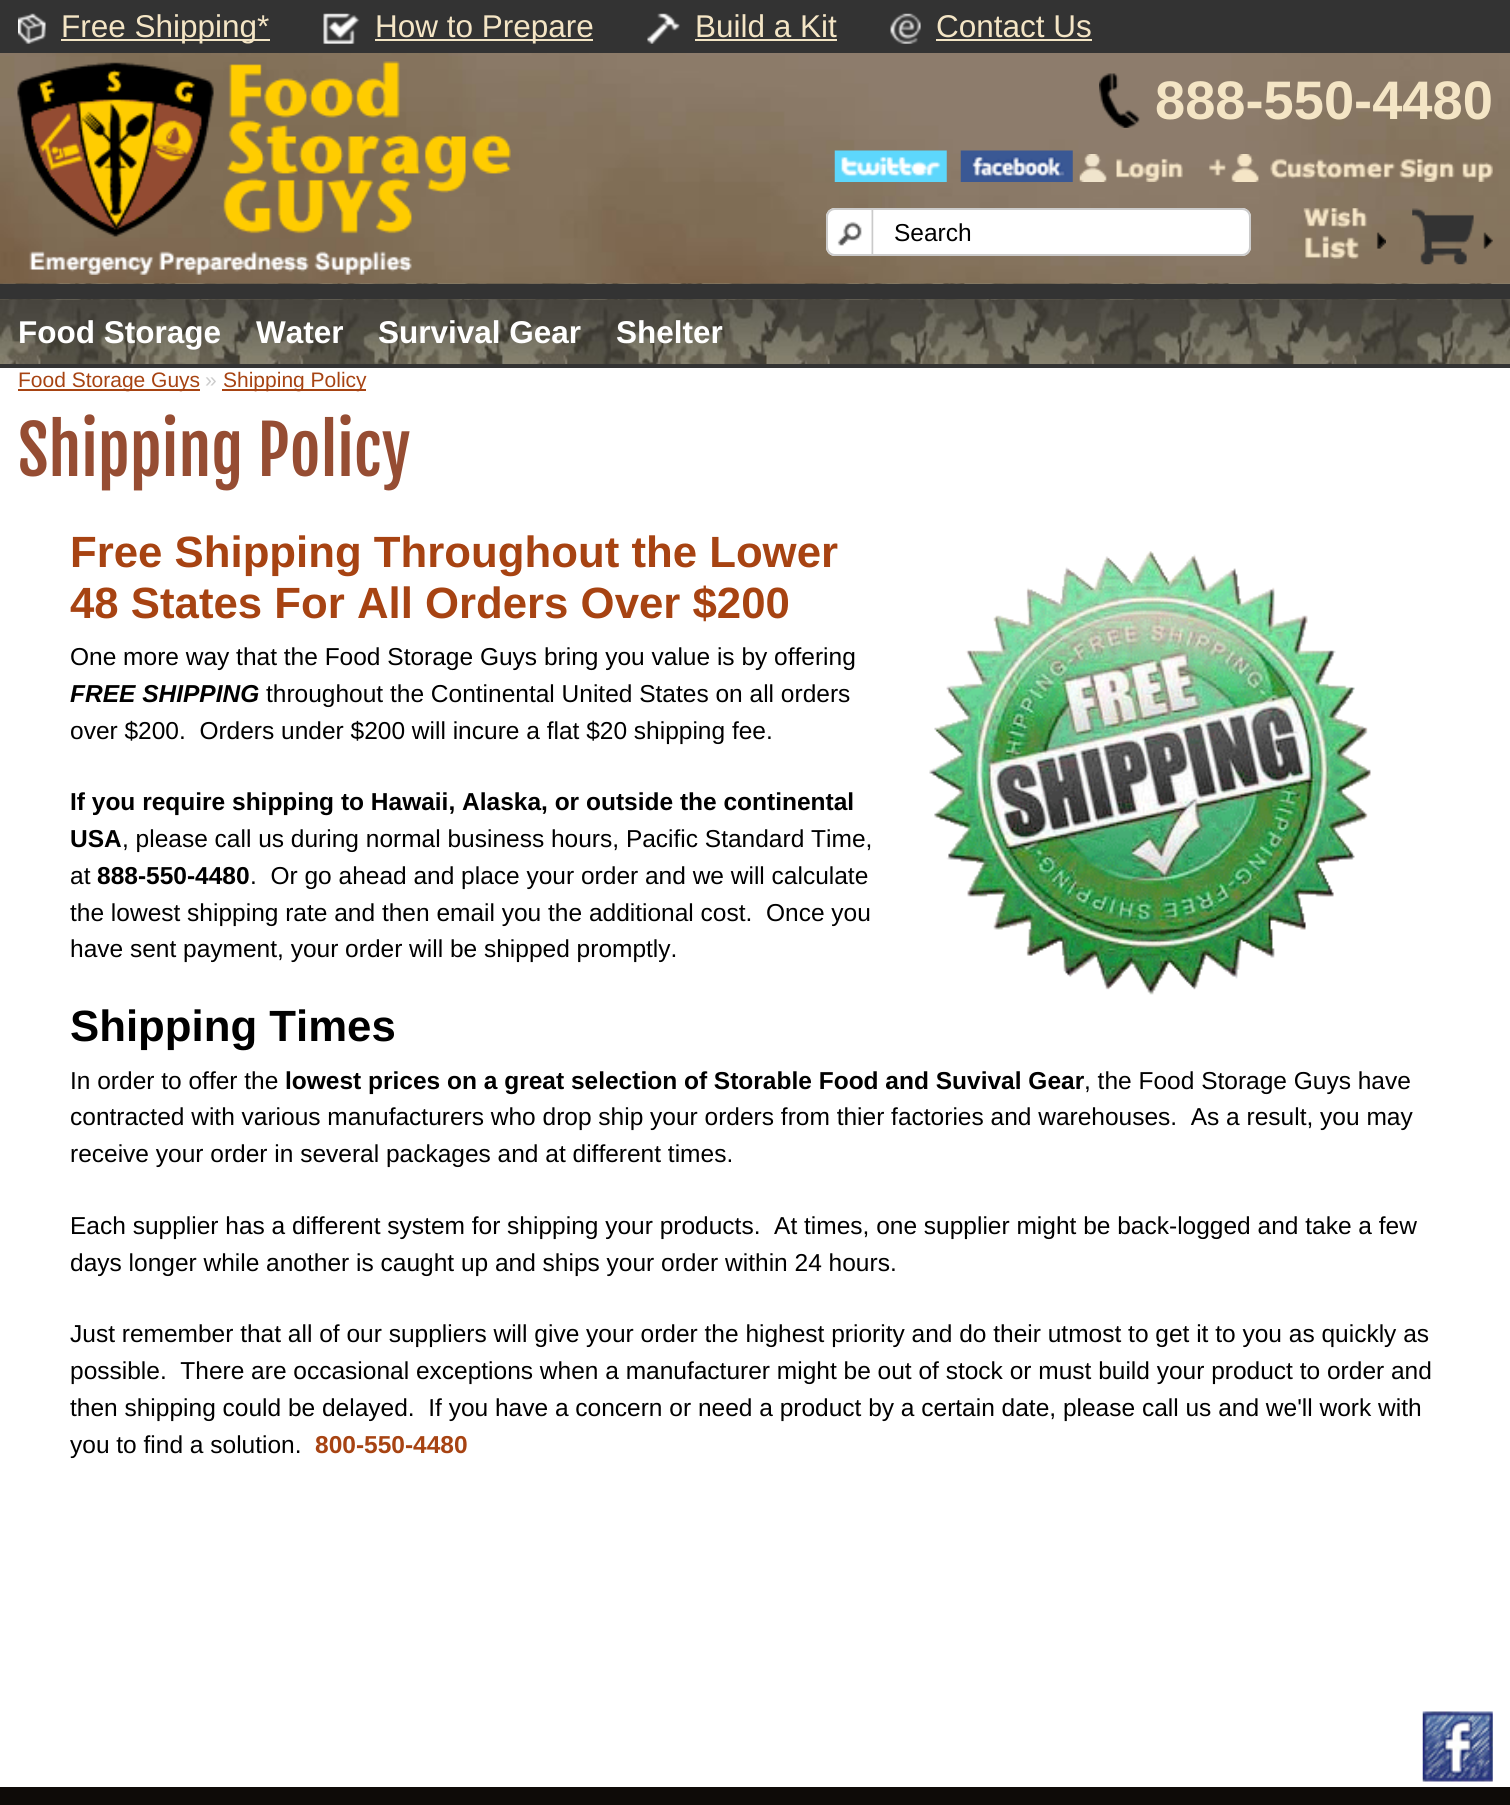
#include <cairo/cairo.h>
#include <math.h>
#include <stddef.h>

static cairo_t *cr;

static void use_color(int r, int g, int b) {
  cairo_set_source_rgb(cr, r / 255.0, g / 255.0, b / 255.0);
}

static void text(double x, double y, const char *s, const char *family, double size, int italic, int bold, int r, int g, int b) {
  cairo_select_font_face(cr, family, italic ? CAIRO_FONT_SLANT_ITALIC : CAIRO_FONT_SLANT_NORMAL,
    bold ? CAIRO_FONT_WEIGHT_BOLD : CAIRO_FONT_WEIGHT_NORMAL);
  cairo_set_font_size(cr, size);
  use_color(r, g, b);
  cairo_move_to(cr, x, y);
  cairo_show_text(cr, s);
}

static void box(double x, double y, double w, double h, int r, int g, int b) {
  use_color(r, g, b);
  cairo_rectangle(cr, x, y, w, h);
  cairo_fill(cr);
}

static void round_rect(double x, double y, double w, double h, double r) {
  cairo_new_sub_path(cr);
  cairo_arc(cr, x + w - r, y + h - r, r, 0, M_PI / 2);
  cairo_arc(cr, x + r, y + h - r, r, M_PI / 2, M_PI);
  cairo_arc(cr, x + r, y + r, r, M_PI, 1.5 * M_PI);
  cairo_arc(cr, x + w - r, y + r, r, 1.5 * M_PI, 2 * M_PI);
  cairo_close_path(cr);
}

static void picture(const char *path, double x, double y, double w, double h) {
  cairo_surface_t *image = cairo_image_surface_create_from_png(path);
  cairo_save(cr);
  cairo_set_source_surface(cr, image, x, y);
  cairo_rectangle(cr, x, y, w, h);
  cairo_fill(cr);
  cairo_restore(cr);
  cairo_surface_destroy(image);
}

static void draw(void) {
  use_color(14, 11, 8);
  cairo_paint(cr);
  picture("img_01.png", 0, 53, 1510, 231);
  box(0, 0, 1510, 53, 51, 51, 51);
  picture("img_02.png", 18, 13, 28, 31);
  box(61, 39, 209, 2, 243, 229, 197);
  picture("img_03.png", 323, 13, 37, 31);
  box(375, 39, 218, 2, 243, 229, 197);
  picture("img_04.png", 647, 13, 33, 31);
  box(695, 39, 142, 2, 243, 229, 197);
  picture("img_05.png", 890, 13, 31, 31);
  box(936, 39, 156, 2, 243, 229, 197);
  picture("img_06.png", 17, 61, 494, 214);
  picture("img_07.png", 1099, 73, 41, 55);
  picture("img_08.png", 834, 150, 113, 32);
  picture("img_09.png", 960, 150, 113, 32);
  picture("img_10.png", 1079, 154, 104, 28);
  picture("img_11.png", 1209, 154, 284, 28);
  use_color(255, 255, 255);
  round_rect(826, 208, 425, 48, 9);
  cairo_fill(cr);
  picture("img_12.png", 827, 210, 47, 46);
  round_rect(827, 209, 423, 46, 8);
  use_color(204, 204, 204);
  cairo_stroke(cr);
  picture("img_13.png", 1303, 208, 83, 51);
  picture("img_14.png", 1412, 208, 81, 57);
  picture("img_15.png", 0, 283, 1510, 81);
  box(0, 284, 1510, 15, 51, 51, 51);
  box(0, 364, 1510, 4, 51, 51, 51);
  box(0, 368, 1510, 1419, 255, 255, 255);
  box(18, 389, 182, 2, 167, 67, 18);
  box(222, 389, 144, 2, 167, 67, 18);
  picture("img_16.png", 929, 551, 442, 444);
  picture("img_17.png", 1422, 1711, 71, 71);
  text(61, 37, "Free Shipping*", "Liberation Sans", 31.5, 0, 0, 244, 229, 197);
  text(375, 37, "How to Prepare", "Liberation Sans", 31.5, 0, 0, 244, 229, 197);
  text(695, 37, "Build a Kit", "Liberation Sans", 31.5, 0, 0, 244, 229, 197);
  text(936, 37, "Contact Us", "Liberation Sans", 31.5, 0, 0, 244, 229, 197);
  text(1155, 119, "888-550-4480", "Liberation Sans", 54.25, 0, 1, 244, 229, 197);
  text(894, 241, "Search", "Liberation Sans", 24.5, 0, 0, 0, 0, 0);
  text(18, 343, "Food Storage", "Liberation Sans", 31.5, 0, 1, 255, 255, 255);
  text(256, 343, "Water", "Liberation Sans", 31.5, 0, 1, 255, 255, 255);
  text(378, 343, "Survival Gear", "Liberation Sans", 31.5, 0, 1, 255, 255, 255);
  text(616, 343, "Shelter", "Liberation Sans", 31.5, 0, 1, 255, 255, 255);
  text(18, 387, "Food Storage Guys", "Liberation Sans", 21, 0, 0, 167, 67, 18);
  text(205, 387, "»", "Liberation Sans", 21, 0, 0, 204, 204, 204);
  text(223, 387, "Shipping Policy", "Liberation Sans", 21, 0, 0, 167, 67, 18);
  text(18, 476, "Shipping Policy", "Fjalla One", 66.5, 0, 0, 150, 77, 51);
  text(70, 567, "Free Shipping Throughout the Lower", "Liberation Sans", 43.75, 0, 1, 167, 67, 18);
  text(70, 618, "48 States For All Orders Over $200", "Liberation Sans", 43.75, 0, 1, 167, 67, 18);
  text(70, 665, "One more way that the Food Storage Guys bring you value is by offering", "Liberation Sans", 24.5, 0, 0, 0, 0, 0);
  text(70, 702, "FREE SHIPPING", "Liberation Sans", 24.5, 1, 1, 0, 0, 0);
  text(266, 702, "throughout the Continental United States on all orders", "Liberation Sans", 24.5, 0, 0, 0, 0, 0);
  text(70, 739, "over $200.  Orders under $200 will incure a flat $20 shipping fee.", "Liberation Sans", 24.5, 0, 0, 0, 0, 0);
  text(70, 810, "If you require shipping to Hawaii, Alaska, or outside the continental", "Liberation Sans", 24.5, 0, 1, 0, 0, 0);
  text(70, 847, "USA", "Liberation Sans", 24.5, 0, 1, 0, 0, 0);
  text(122, 847, ", please call us during normal business hours, Pacific Standard Time,", "Liberation Sans", 24.5, 0, 0, 0, 0, 0);
  text(70, 884, "at", "Liberation Sans", 24.5, 0, 0, 0, 0, 0);
  text(97, 884, "888-550-4480", "Liberation Sans", 24.5, 0, 1, 0, 0, 0);
  text(250, 884, ".  Or go ahead and place your order and we will calculate", "Liberation Sans", 24.5, 0, 0, 0, 0, 0);
  text(70, 921, "the lowest shipping rate and then email you the additional cost.  Once you", "Liberation Sans", 24.5, 0, 0, 0, 0, 0);
  text(70, 957, "have sent payment, your order will be shipped promptly.", "Liberation Sans", 24.5, 0, 0, 0, 0, 0);
  text(70, 1041, "Shipping Times", "Liberation Sans", 43.75, 0, 1, 0, 0, 0);
  text(70, 1089, "In order to offer the", "Liberation Sans", 24.5, 0, 0, 0, 0, 0);
  text(285, 1089, "lowest prices on a great selection of Storable Food and Suvival Gear", "Liberation Sans", 24.5, 0, 1, 0, 0, 0);
  text(1084, 1089, ", the Food Storage Guys have", "Liberation Sans", 24.5, 0, 0, 0, 0, 0);
  text(70, 1125, "contracted with various manufacturers who drop ship your orders from thier factories and warehouses.  As a result, you may", "Liberation Sans", 24.5, 0, 0, 0, 0, 0);
  text(70, 1162, "receive your order in several packages and at different times.", "Liberation Sans", 24.5, 0, 0, 0, 0, 0);
  text(70, 1234, "Each supplier has a different system for shipping your products.  At times, one supplier might be back-logged and take a few", "Liberation Sans", 24.5, 0, 0, 0, 0, 0);
  text(70, 1271, "days longer while another is caught up and ships your order within 24 hours.", "Liberation Sans", 24.5, 0, 0, 0, 0, 0);
  text(70, 1342, "Just remember that all of our suppliers will give your order the highest priority and do their utmost to get it to you as quickly as", "Liberation Sans", 24.5, 0, 0, 0, 0, 0);
  text(70, 1379, "possible.  There are occasional exceptions when a manufacturer might be out of stock or must build your product to order and", "Liberation Sans", 24.5, 0, 0, 0, 0, 0);
  text(70, 1416, "then shipping could be delayed.  If you have a concern or need a product by a certain date, please call us and we'll work with", "Liberation Sans", 24.5, 0, 0, 0, 0, 0);
  text(70, 1453, "you to find a solution.", "Liberation Sans", 24.5, 0, 0, 0, 0, 0);
  text(315, 1453, "800-550-4480", "Liberation Sans", 24.5, 0, 1, 167, 67, 18);
}

int main(void) {
  cairo_surface_t *surface = cairo_image_surface_create(CAIRO_FORMAT_RGB24, 1510, 1805);
  cr = cairo_create(surface);
  cairo_font_options_t *options = cairo_font_options_create();
  cairo_font_options_set_hint_metrics(options, CAIRO_HINT_METRICS_OFF);
  cairo_font_options_set_hint_style(options, CAIRO_HINT_STYLE_NONE);
  cairo_set_font_options(cr, options);
  cairo_set_miter_limit(cr, 4);
  draw();
  cairo_surface_write_to_png(surface, "out.png");
  cairo_font_options_destroy(options);
  cairo_destroy(cr);
  cairo_surface_destroy(surface);
  return 0;
}
